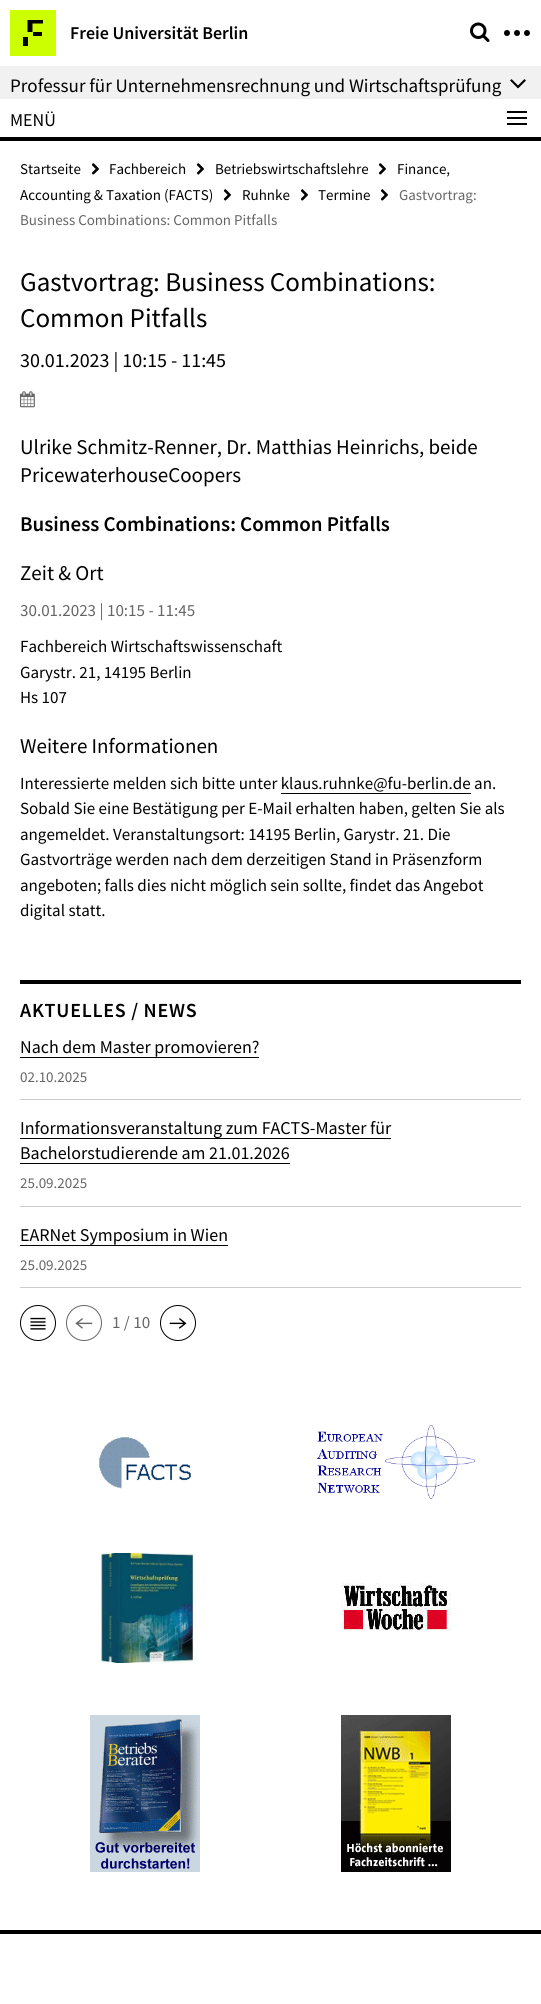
#include <cairo/cairo.h>
#include <math.h>
#include <stddef.h>

static cairo_t *cr;

static void use_color(int r, int g, int b) {
  cairo_set_source_rgb(cr, r / 255.0, g / 255.0, b / 255.0);
}

static void text(double x, double y, const char *s, const char *family, double size, int italic, int bold, int r, int g, int b) {
  cairo_select_font_face(cr, family, italic ? CAIRO_FONT_SLANT_ITALIC : CAIRO_FONT_SLANT_NORMAL,
    bold ? CAIRO_FONT_WEIGHT_BOLD : CAIRO_FONT_WEIGHT_NORMAL);
  cairo_set_font_size(cr, size);
  use_color(r, g, b);
  cairo_move_to(cr, x, y);
  cairo_show_text(cr, s);
}

static void spaced_text(double x, double y, const char *s, double letter, double word) {
  cairo_move_to(cr, x, y);
  while (*s) {
    char ch[5] = {0};
    int n = 0;
    do ch[n++] = *s++; while ((*s & 0xC0) == 0x80);
    cairo_show_text(cr, ch);
    cairo_rel_move_to(cr, letter + word * (*ch == ' '), 0);
  }
}

static void box(double x, double y, double w, double h, int r, int g, int b) {
  use_color(r, g, b);
  cairo_rectangle(cr, x, y, w, h);
  cairo_fill(cr);
}

static void picture(const char *path, double x, double y, double w, double h) {
  cairo_surface_t *image = cairo_image_surface_create_from_png(path);
  cairo_save(cr);
  cairo_set_source_surface(cr, image, x, y);
  cairo_rectangle(cr, x, y, w, h);
  cairo_fill(cr);
  cairo_restore(cr);
  cairo_surface_destroy(image);
}

static void draw(void) {
  use_color(255, 255, 255);
  cairo_paint(cr);
  box(10, 10, 46, 46, 204, 255, 0);
  use_color(0, 0, 0);
  cairo_new_path(cr);
  cairo_move_to(cr, 27.5, 20);
  cairo_line_to(cr, 43, 20);
  cairo_line_to(cr, 43, 23.5);
  cairo_line_to(cr, 32.5, 23.5);
  cairo_line_to(cr, 32.5, 32);
  cairo_line_to(cr, 27.5, 32);
  cairo_close_path(cr);
  cairo_fill(cr);
  box(33, 32, 9, 4, 0, 0, 0);
  box(23, 37, 5, 9, 0, 0, 0);
  picture("img_01.png", 470, 22, 20, 20);
  cairo_arc(cr, 507, 33, 3, 0, 2 * M_PI);
  cairo_fill(cr);
  cairo_arc(cr, 517, 33, 3, 0, 2 * M_PI);
  cairo_fill(cr);
  cairo_arc(cr, 527, 33, 3, 0, 2 * M_PI);
  cairo_fill(cr);
  box(0, 66, 541, 33, 241, 241, 241);
  picture("img_02.png", 510, 79, 16, 10);
  box(0, 137, 541, 4, 0, 0, 0);
  box(507, 111, 20, 2, 0, 0, 0);
  box(507, 117, 20, 2, 0, 0, 0);
  box(507, 123, 20, 2, 0, 0, 0);
  picture("img_03.png", 91, 163, 8, 12);
  picture("img_03.png", 223, 189, 8, 12);
  picture("img_03.png", 196, 163, 8, 12);
  picture("img_03.png", 378, 163, 8, 12);
  picture("img_03.png", 300, 189, 8, 12);
  picture("img_03.png", 380, 189, 8, 12);
  picture("img_04.png", 20, 391, 15, 17);
  box(281, 793, 190, 1, 0, 0, 0);
  box(20, 980, 501, 4, 0, 0, 0);
  box(20, 1099, 501, 1, 204, 204, 204);
  box(20, 1057, 239, 1, 0, 0, 0);
  box(20, 1206, 501, 1, 204, 204, 204);
  box(20, 1138, 371, 1, 0, 0, 0);
  box(20, 1163, 270, 1, 0, 0, 0);
  box(20, 1287, 501, 1, 204, 204, 204);
  box(20, 1245, 208, 1, 0, 0, 0);
  cairo_arc(cr, 38, 1323, 17.5, 0, 2 * M_PI);
  cairo_set_line_width(cr, 1);
  cairo_stroke(cr);
  picture("img_05.png", 30, 1317, 16, 13);
  cairo_arc(cr, 84, 1323, 17.5, 0, 2 * M_PI);
  use_color(102, 102, 102);
  cairo_stroke(cr);
  picture("img_06.png", 75, 1318, 18, 11);
  cairo_arc(cr, 178, 1323, 17.5, 0, 2 * M_PI);
  use_color(0, 0, 0);
  cairo_stroke(cr);
  picture("img_07.png", 169, 1318, 18, 11);
  picture("img_08.png", 99, 1437, 92, 52);
  picture("img_09.png", 317, 1425, 159, 74);
  picture("img_10.png", 99, 1553, 98, 110);
  picture("img_11.png", 341, 1583, 110, 48);
  picture("img_12.png", 90, 1715, 110, 157);
  picture("img_13.png", 341, 1715, 110, 157);
  box(0, 1930, 541, 4, 0, 0, 0);
  text(70, 39, "Freie Universität Berlin", "Source Sans Pro SemiBold", 18, 0, 0, 0, 0, 0);
  text(10, 92, "Professur für Unternehmensrechnung und Wirtschaftsprüfung", "Source Sans Pro", 19, 0, 0, 0, 0, 0);
  text(10, 126, "MENÜ", "Source Sans Pro", 18, 0, 0, 0, 0, 0);
  text(20, 174, "Startseite", "Source Sans Pro", 15, 0, 0, 0, 0, 0);
  text(397, 174, "Finance,", "Source Sans Pro", 15, 0, 0, 0, 0, 0);
  text(20, 200, "Accounting & Taxation (FACTS)", "Source Sans Pro", 15, 0, 0, 0, 0, 0);
  text(109, 174, "Fachbereich", "Source Sans Pro", 15, 0, 0, 0, 0, 0);
  text(215, 174, "Betriebswirtschaftslehre", "Source Sans Pro", 15, 0, 0, 0, 0, 0);
  text(242, 200, "Ruhnke", "Source Sans Pro", 15, 0, 0, 0, 0, 0);
  text(318, 200, "Termine", "Source Sans Pro", 15, 0, 0, 0, 0, 0);
  text(399, 200, "Gastvortrag:", "Source Sans Pro", 15, 0, 0, 102, 102, 102);
  text(20, 225, "Business Combinations: Common Pitfalls", "Source Sans Pro", 15, 0, 0, 102, 102, 102);
  text(20, 291, "Gastvortrag: Business Combinations:", "Source Sans Pro", 27, 0, 0, 0, 0, 0);
  text(20, 327, "Common Pitfalls", "Source Sans Pro", 27, 0, 0, 0, 0, 0);
  text(20, 367, "30.01.2023 | 10:15 - 11:45", "Source Sans Pro", 20, 0, 0, 0, 0, 0);
  text(20, 454, "Ulrike Schmitz-Renner, Dr. Matthias Heinrichs, beide", "Source Sans Pro", 21, 0, 0, 0, 0, 0);
  text(20, 482, "PricewaterhouseCoopers", "Source Sans Pro", 21, 0, 0, 0, 0, 0);
  text(20, 531, "Business Combinations: Common Pitfalls", "Source Sans Pro SemiBold", 21, 0, 0, 0, 0, 0);
  text(20, 580, "Zeit & Ort", "Source Sans Pro", 21, 0, 0, 0, 0, 0);
  text(20, 616, "30.01.2023 | 10:15 - 11:45", "Source Sans Pro", 17, 0, 0, 102, 102, 102);
  text(20, 652, "Fachbereich Wirtschaftswissenschaft", "Source Sans Pro", 17, 0, 0, 0, 0, 0);
  text(20, 678, "Garystr. 21, 14195 Berlin", "Source Sans Pro", 17, 0, 0, 0, 0, 0);
  text(20, 703, "Hs 107", "Source Sans Pro", 17, 0, 0, 0, 0, 0);
  text(20, 753, "Weitere Informationen", "Source Sans Pro", 21, 0, 0, 0, 0, 0);
  text(20, 789, "Interessierte melden sich bitte unter klaus.ruhnke@fu-berlin.de an.", "Source Sans Pro", 17, 0, 0, 0, 0, 0);
  text(20, 814, "Sobald Sie eine Bestätigung per E-Mail erhalten haben, gelten Sie als", "Source Sans Pro", 17, 0, 0, 0, 0, 0);
  text(20, 840, "angemeldet. Veranstaltungsort: 14195 Berlin, Garystr. 21. Die", "Source Sans Pro", 17, 0, 0, 0, 0, 0);
  text(20, 865, "Gastvorträge werden nach dem derzeitigen Stand in Präsenzform", "Source Sans Pro", 17, 0, 0, 0, 0, 0);
  text(20, 891, "angeboten; falls dies nicht möglich sein sollte, findet das Angebot", "Source Sans Pro", 17, 0, 0, 0, 0, 0);
  text(20, 916, "digital statt.", "Source Sans Pro", 17, 0, 0, 0, 0, 0);
  cairo_select_font_face(cr, "Source Sans Pro SemiBold", CAIRO_FONT_SLANT_NORMAL, CAIRO_FONT_WEIGHT_NORMAL);
  cairo_set_font_size(cr, 20);
  spaced_text(20, 1017, "AKTUELLES / NEWS", 0.75, 0);
  text(20, 1053, "Nach dem Master promovieren?", "Source Sans Pro", 18, 0, 0, 0, 0, 0);
  text(20, 1082, "02.10.2025", "Source Sans Pro", 15, 0, 0, 102, 102, 102);
  text(20, 1134, "Informationsveranstaltung zum FACTS-Master für", "Source Sans Pro", 18, 0, 0, 0, 0, 0);
  text(20, 1159, "Bachelorstudierende am 21.01.2026", "Source Sans Pro", 18, 0, 0, 0, 0, 0);
  text(20, 1188, "25.09.2025", "Source Sans Pro", 15, 0, 0, 102, 102, 102);
  text(20, 1241, "EARNet Symposium in Wien", "Source Sans Pro", 18, 0, 0, 0, 0, 0);
  text(20, 1270, "25.09.2025", "Source Sans Pro", 15, 0, 0, 102, 102, 102);
  text(112, 1328, "1 / 10", "Source Sans Pro", 17, 0, 0, 102, 102, 102);
}

int main(void) {
  cairo_surface_t *surface = cairo_image_surface_create(CAIRO_FORMAT_RGB24, 541, 2004);
  cr = cairo_create(surface);
  cairo_font_options_t *options = cairo_font_options_create();
  cairo_font_options_set_hint_metrics(options, CAIRO_HINT_METRICS_OFF);
  cairo_font_options_set_hint_style(options, CAIRO_HINT_STYLE_NONE);
  cairo_set_font_options(cr, options);
  cairo_set_miter_limit(cr, 4);
  draw();
  cairo_surface_write_to_png(surface, "out.png");
  cairo_font_options_destroy(options);
  cairo_destroy(cr);
  cairo_surface_destroy(surface);
  return 0;
}
